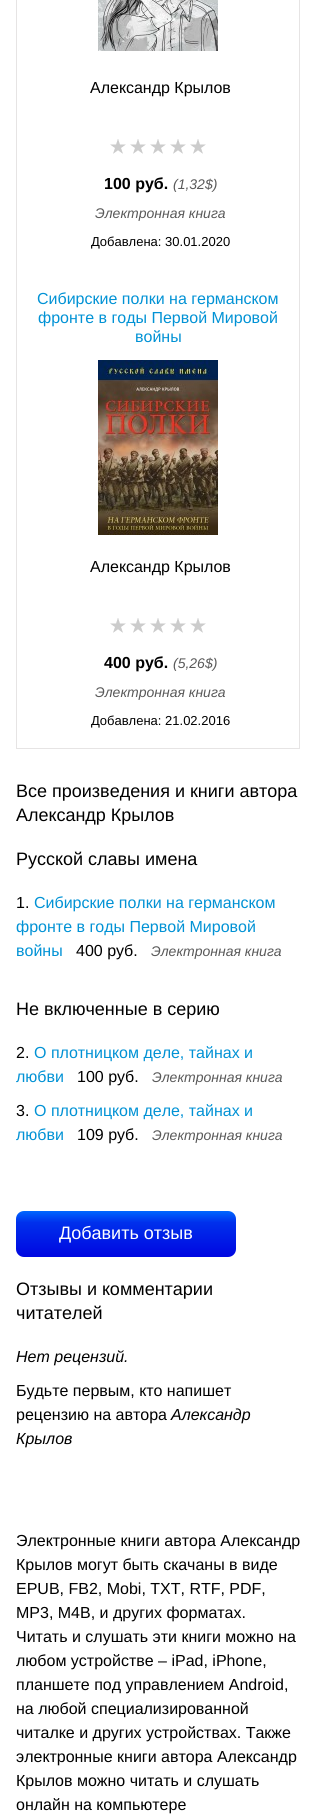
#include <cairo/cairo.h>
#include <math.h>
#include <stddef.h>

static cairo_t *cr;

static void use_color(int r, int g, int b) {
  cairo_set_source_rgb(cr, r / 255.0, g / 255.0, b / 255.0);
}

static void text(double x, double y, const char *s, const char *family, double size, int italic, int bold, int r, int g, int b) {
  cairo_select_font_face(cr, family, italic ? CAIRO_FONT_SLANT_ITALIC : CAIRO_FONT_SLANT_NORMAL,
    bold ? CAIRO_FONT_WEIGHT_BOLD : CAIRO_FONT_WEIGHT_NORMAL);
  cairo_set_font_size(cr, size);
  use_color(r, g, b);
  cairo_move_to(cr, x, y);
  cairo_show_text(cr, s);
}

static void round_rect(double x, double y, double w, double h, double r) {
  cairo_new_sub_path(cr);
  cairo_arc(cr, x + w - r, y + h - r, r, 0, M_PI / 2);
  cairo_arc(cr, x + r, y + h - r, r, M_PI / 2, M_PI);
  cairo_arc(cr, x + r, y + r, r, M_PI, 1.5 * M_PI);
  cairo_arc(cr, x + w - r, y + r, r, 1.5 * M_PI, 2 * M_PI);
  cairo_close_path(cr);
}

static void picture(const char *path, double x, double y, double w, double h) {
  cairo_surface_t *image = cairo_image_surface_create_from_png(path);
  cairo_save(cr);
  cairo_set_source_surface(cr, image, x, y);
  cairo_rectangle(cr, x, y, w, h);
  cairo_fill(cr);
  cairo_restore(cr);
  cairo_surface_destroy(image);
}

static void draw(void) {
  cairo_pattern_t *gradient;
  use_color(255, 255, 255);
  cairo_paint(cr);
  cairo_rectangle(cr, 16.5, -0.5, 283, 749);
  use_color(230, 228, 228);
  cairo_set_line_width(cr, 1);
  cairo_stroke(cr);
  picture("img_01.png", 98, 0, 120, 51);
  picture("img_02.png", 110, 139, 96, 15);
  picture("img_03.png", 98, 360, 120, 175);
  picture("img_02.png", 110, 618, 96, 15);
  gradient = cairo_pattern_create_linear(126, 1211, 126, 1257);
  cairo_pattern_add_color_stop_rgba(gradient, 0, 0, 0.404, 1, 1);
  cairo_pattern_add_color_stop_rgba(gradient, 0.25, 0, 0.188, 0.925, 1);
  cairo_pattern_add_color_stop_rgba(gradient, 1, 0, 0.024, 0.882, 1);
  cairo_set_source(cr, gradient);
  cairo_pattern_destroy(gradient);
  round_rect(16, 1211, 220, 46, 8);
  cairo_fill(cr);
  text(90, 93, "Александр Крылов", "Liberation Sans", 16, 0, 0, 0, 0, 0);
  text(104, 189, "100 руб.", "Liberation Sans", 16, 0, 1, 0, 0, 0);
  text(173, 189, "(1,32$)", "Liberation Sans", 14, 1, 0, 89, 89, 89);
  text(95, 218, "Электронная книга", "Liberation Sans", 14, 1, 0, 89, 89, 89);
  text(91, 246, "Добавлена: 30.01.2020", "Liberation Sans", 13, 0, 0, 0, 0, 0);
  text(37, 304, "Сибирские полки на германском", "Liberation Sans", 16, 0, 0, 1, 146, 213);
  text(38, 323, "фронте в годы Первой Мировой", "Liberation Sans", 16, 0, 0, 1, 146, 213);
  text(135, 342, "войны", "Liberation Sans", 16, 0, 0, 1, 146, 213);
  text(90, 572, "Александр Крылов", "Liberation Sans", 16, 0, 0, 0, 0, 0);
  text(104, 668, "400 руб.", "Liberation Sans", 16, 0, 1, 0, 0, 0);
  text(173, 668, "(5,26$)", "Liberation Sans", 14, 1, 0, 89, 89, 89);
  text(95, 697, "Электронная книга", "Liberation Sans", 14, 1, 0, 89, 89, 89);
  text(91, 725, "Добавлена: 21.02.2016", "Liberation Sans", 13, 0, 0, 0, 0, 0);
  text(16, 797, "Все произведения и книги автора", "Liberation Sans", 18, 0, 0, 0, 0, 0);
  text(16, 821, "Александр Крылов", "Liberation Sans", 18, 0, 0, 0, 0, 0);
  text(16, 865, "Русской славы имена", "Liberation Sans", 18, 0, 0, 0, 0, 0);
  text(16, 908, "1.", "Liberation Sans", 16, 0, 0, 0, 0, 0);
  text(34, 908, "Сибирские полки на германском", "Liberation Sans", 16, 0, 0, 1, 146, 213);
  text(16, 932, "фронте в годы Первой Мировой", "Liberation Sans", 16, 0, 0, 1, 146, 213);
  text(16, 956, "войны", "Liberation Sans", 16, 0, 0, 1, 146, 213);
  text(76, 956, "400 руб.", "Liberation Sans", 16, 0, 0, 0, 0, 0);
  text(151, 956, "Электронная книга", "Liberation Sans", 14, 1, 0, 89, 89, 89);
  text(16, 1015, "Не включенные в серию", "Liberation Sans", 18, 0, 0, 0, 0, 0);
  text(16, 1058, "2.", "Liberation Sans", 16, 0, 0, 0, 0, 0);
  text(34, 1058, "О плотницком деле, тайнах и", "Liberation Sans", 16, 0, 0, 1, 146, 213);
  text(16, 1082, "любви", "Liberation Sans", 16, 0, 0, 1, 146, 213);
  text(77, 1082, "100 руб.", "Liberation Sans", 16, 0, 0, 0, 0, 0);
  text(152, 1082, "Электронная книга", "Liberation Sans", 14, 1, 0, 89, 89, 89);
  text(16, 1116, "3.", "Liberation Sans", 16, 0, 0, 0, 0, 0);
  text(34, 1116, "О плотницком деле, тайнах и", "Liberation Sans", 16, 0, 0, 1, 146, 213);
  text(16, 1140, "любви", "Liberation Sans", 16, 0, 0, 1, 146, 213);
  text(77, 1140, "109 руб.", "Liberation Sans", 16, 0, 0, 0, 0, 0);
  text(152, 1140, "Электронная книга", "Liberation Sans", 14, 1, 0, 89, 89, 89);
  text(59, 1239, "Добавить отзыв", "Liberation Sans", 18, 0, 0, 255, 255, 255);
  text(16, 1295, "Отзывы и комментарии", "Liberation Sans", 18, 0, 0, 0, 0, 0);
  text(16, 1319, "читателей", "Liberation Sans", 18, 0, 0, 0, 0, 0);
  text(16, 1362, "Нет рецензий.", "Liberation Sans", 16, 1, 0, 0, 0, 0);
  text(16, 1396, "Будьте первым, кто напишет", "Liberation Sans", 16, 0, 0, 0, 0, 0);
  text(16, 1420, "рецензию на автора", "Liberation Sans", 16, 0, 0, 0, 0, 0);
  text(171, 1420, "Александр", "Liberation Sans", 16, 1, 0, 0, 0, 0);
  text(16, 1444, "Крылов", "Liberation Sans", 16, 1, 0, 0, 0, 0);
  text(16, 1546, "Электронные книги автора Александр", "Liberation Sans", 16, 0, 0, 0, 0, 0);
  text(16, 1570, "Крылов могут быть скачаны в виде", "Liberation Sans", 16, 0, 0, 0, 0, 0);
  text(16, 1594, "EPUB, FB2, Mobi, TXT, RTF, PDF,", "Liberation Sans", 16, 0, 0, 0, 0, 0);
  text(16, 1618, "MP3, M4B, и других форматах.", "Liberation Sans", 16, 0, 0, 0, 0, 0);
  text(16, 1642, "Читать и слушать эти книги можно на", "Liberation Sans", 16, 0, 0, 0, 0, 0);
  text(16, 1666, "любом устройстве – iPad, iPhone,", "Liberation Sans", 16, 0, 0, 0, 0, 0);
  text(16, 1690, "планшете под управлением Android,", "Liberation Sans", 16, 0, 0, 0, 0, 0);
  text(16, 1714, "на любой специализированной", "Liberation Sans", 16, 0, 0, 0, 0, 0);
  text(16, 1738, "читалке и других устройствах. Также", "Liberation Sans", 16, 0, 0, 0, 0, 0);
  text(16, 1762, "электронные книги автора Александр", "Liberation Sans", 16, 0, 0, 0, 0, 0);
  text(16, 1786, "Крылов можно читать и слушать", "Liberation Sans", 16, 0, 0, 0, 0, 0);
  text(16, 1810, "онлайн на компьютере", "Liberation Sans", 16, 0, 0, 0, 0, 0);
}

int main(void) {
  cairo_surface_t *surface = cairo_image_surface_create(CAIRO_FORMAT_RGB24, 316, 1819);
  cr = cairo_create(surface);
  cairo_font_options_t *options = cairo_font_options_create();
  cairo_font_options_set_hint_metrics(options, CAIRO_HINT_METRICS_OFF);
  cairo_font_options_set_hint_style(options, CAIRO_HINT_STYLE_NONE);
  cairo_set_font_options(cr, options);
  cairo_set_miter_limit(cr, 4);
  draw();
  cairo_surface_write_to_png(surface, "out.png");
  cairo_font_options_destroy(options);
  cairo_destroy(cr);
  cairo_surface_destroy(surface);
  return 0;
}
